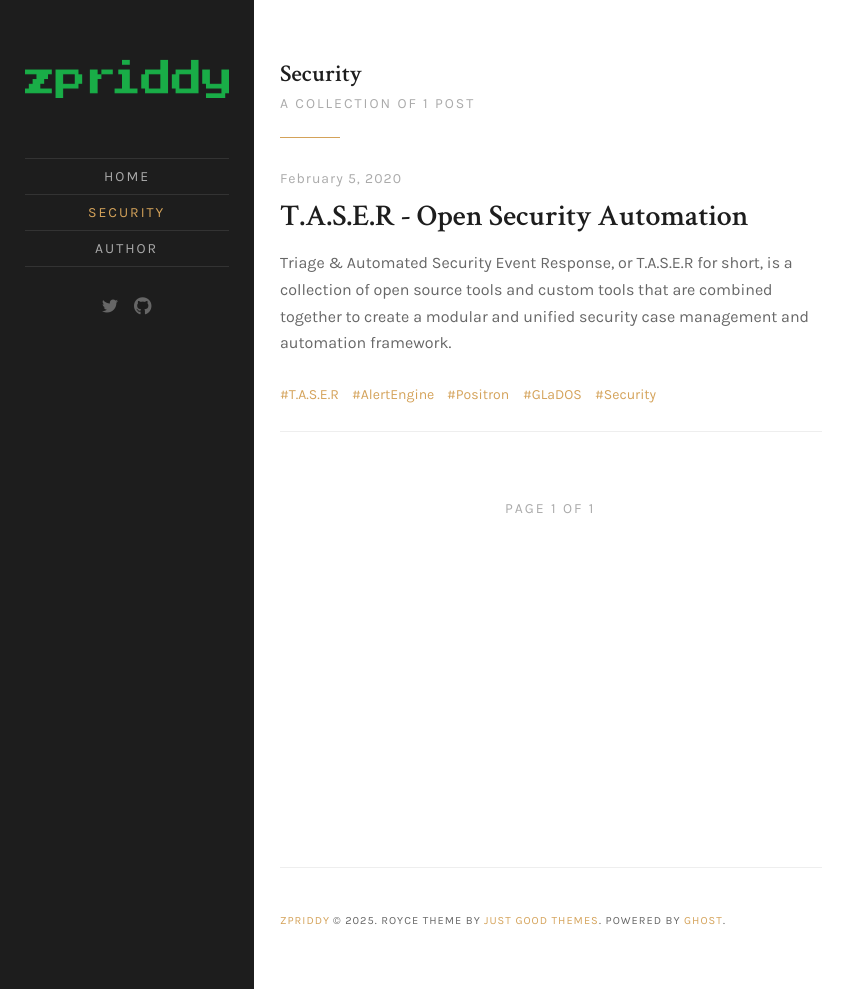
#include <cairo/cairo.h>
#include <math.h>
#include <stddef.h>

static cairo_t *cr;

static void use_color(int r, int g, int b) {
  cairo_set_source_rgb(cr, r / 255.0, g / 255.0, b / 255.0);
}

static void text(double x, double y, const char *s, const char *family, double size, int italic, int bold, int r, int g, int b) {
  cairo_select_font_face(cr, family, italic ? CAIRO_FONT_SLANT_ITALIC : CAIRO_FONT_SLANT_NORMAL,
    bold ? CAIRO_FONT_WEIGHT_BOLD : CAIRO_FONT_WEIGHT_NORMAL);
  cairo_set_font_size(cr, size);
  use_color(r, g, b);
  cairo_move_to(cr, x, y);
  cairo_show_text(cr, s);
}

static void spaced_text(double x, double y, const char *s, double letter, double word) {
  cairo_move_to(cr, x, y);
  while (*s) {
    char ch[5] = {0};
    int n = 0;
    do ch[n++] = *s++; while ((*s & 0xC0) == 0x80);
    cairo_show_text(cr, ch);
    cairo_rel_move_to(cr, letter + word * (*ch == ' '), 0);
  }
}

static void box(double x, double y, double w, double h, int r, int g, int b) {
  use_color(r, g, b);
  cairo_rectangle(cr, x, y, w, h);
  cairo_fill(cr);
}

static void picture(const char *path, double x, double y, double w, double h) {
  cairo_surface_t *image = cairo_image_surface_create_from_png(path);
  cairo_save(cr);
  cairo_set_source_surface(cr, image, x, y);
  cairo_rectangle(cr, x, y, w, h);
  cairo_fill(cr);
  cairo_restore(cr);
  cairo_surface_destroy(image);
}

static void draw(void) {
  use_color(255, 255, 255);
  cairo_paint(cr);
  box(0, 0, 254, 989, 29, 29, 29);
  picture("img_01.png", 25, 59, 204, 39);
  box(25, 266, 204, 1, 51, 51, 51);
  box(25, 158, 204, 1, 51, 51, 51);
  box(25, 194, 204, 1, 51, 51, 51);
  box(25, 230, 204, 1, 51, 51, 51);
  picture("img_02.png", 102, 299, 16, 14);
  picture("img_03.png", 134, 297, 18, 18);
  box(280, 137, 60, 1, 212, 162, 89);
  box(280, 431, 542, 1, 238, 238, 238);
  box(280, 867, 542, 1, 238, 238, 238);
  cairo_select_font_face(cr, "Karla", CAIRO_FONT_SLANT_NORMAL, CAIRO_FONT_WEIGHT_NORMAL);
  cairo_set_font_size(cr, 14);
  use_color(170, 170, 170);
  spaced_text(104, 181, "HOME", 2, 0);
  use_color(212, 162, 89);
  spaced_text(88, 217, "SECURITY", 2, 0);
  use_color(170, 170, 170);
  spaced_text(95, 253, "AUTHOR", 2, 0);
  text(280, 81, "Security", "Crimson Text SemiBold", 24, 0, 0, 29, 29, 29);
  cairo_select_font_face(cr, "Karla", CAIRO_FONT_SLANT_NORMAL, CAIRO_FONT_WEIGHT_NORMAL);
  cairo_set_font_size(cr, 14);
  use_color(170, 170, 170);
  spaced_text(280, 108, "A COLLECTION OF 1 POST", 2, 0);
  spaced_text(280, 183, "February 5, 2020", 1, 0);
  text(280, 225, "T.A.S.E.R - Open Security Automation", "Crimson Text SemiBold", 30, 0, 0, 29, 29, 29);
  text(280, 268, "Triage & Automated Security Event Response, or T.A.S.E.R for short, is a", "Karla", 16, 0, 0, 102, 102, 102);
  text(280, 295, "collection of open source tools and custom tools that are combined", "Karla", 16, 0, 0, 102, 102, 102);
  text(280, 322, "together to create a modular and unified security case management and", "Karla", 16, 0, 0, 102, 102, 102);
  text(280, 348, "automation framework.", "Karla", 16, 0, 0, 102, 102, 102);
  text(280, 399, "#T.A.S.E.R", "Karla", 14, 0, 0, 212, 162, 89);
  text(352, 399, "#AlertEngine", "Karla", 14, 0, 0, 212, 162, 89);
  text(447, 399, "#Positron", "Karla", 14, 0, 0, 212, 162, 89);
  text(523, 399, "#GLaDOS", "Karla", 14, 0, 0, 212, 162, 89);
  text(595, 399, "#Security", "Karla", 14, 0, 0, 212, 162, 89);
  use_color(170, 170, 170);
  spaced_text(505, 513, "PAGE 1 OF 1", 2, 0);
  cairo_set_font_size(cr, 11);
  use_color(212, 162, 89);
  spaced_text(280, 924, "ZPRIDDY", 1, 0);
  use_color(102, 102, 102);
  spaced_text(333, 924, "© 2025. ROYCE THEME BY", 1, 0);
  use_color(212, 162, 89);
  spaced_text(484, 924, "JUST GOOD THEMES", 1, 0);
  use_color(102, 102, 102);
  spaced_text(599, 924, ". POWERED BY", 1, 0);
  use_color(212, 162, 89);
  spaced_text(684, 924, "GHOST", 1, 0);
  use_color(102, 102, 102);
  spaced_text(723, 924, ".", 1, 0);
}

int main(void) {
  cairo_surface_t *surface = cairo_image_surface_create(CAIRO_FORMAT_RGB24, 847, 989);
  cr = cairo_create(surface);
  cairo_font_options_t *options = cairo_font_options_create();
  cairo_font_options_set_hint_metrics(options, CAIRO_HINT_METRICS_OFF);
  cairo_font_options_set_hint_style(options, CAIRO_HINT_STYLE_NONE);
  cairo_set_font_options(cr, options);
  cairo_set_miter_limit(cr, 4);
  draw();
  cairo_surface_write_to_png(surface, "out.png");
  cairo_font_options_destroy(options);
  cairo_destroy(cr);
  cairo_surface_destroy(surface);
  return 0;
}
